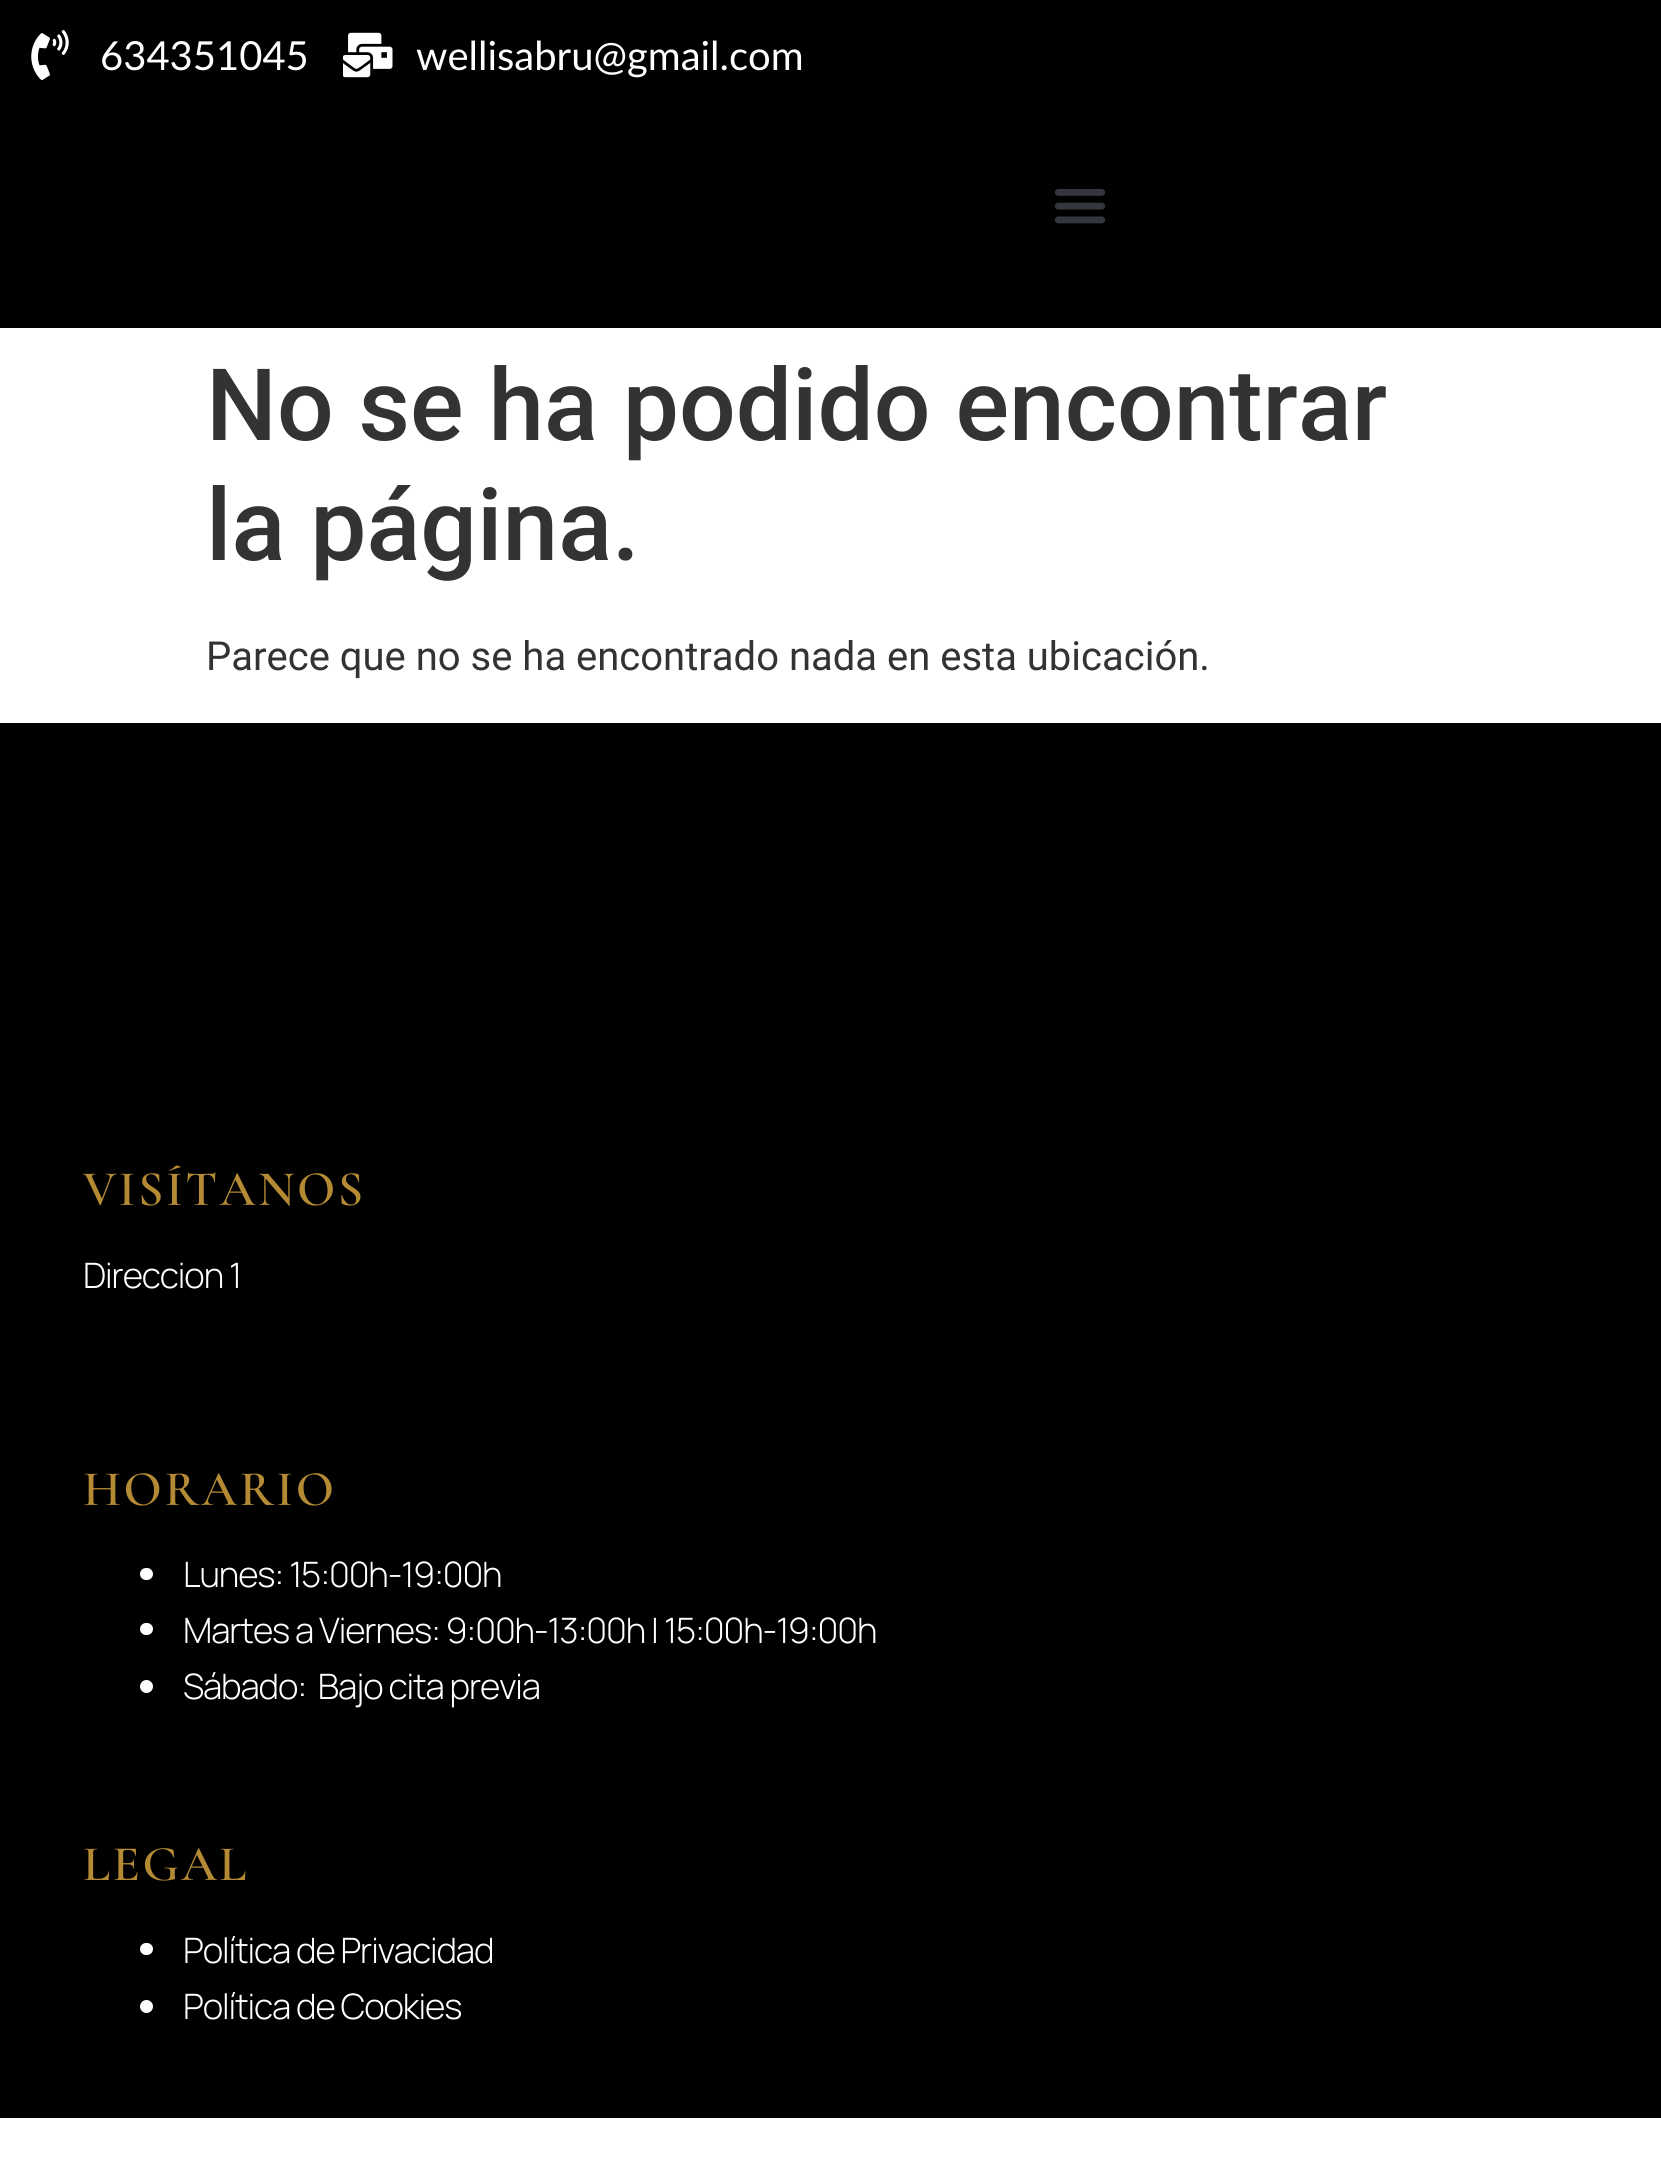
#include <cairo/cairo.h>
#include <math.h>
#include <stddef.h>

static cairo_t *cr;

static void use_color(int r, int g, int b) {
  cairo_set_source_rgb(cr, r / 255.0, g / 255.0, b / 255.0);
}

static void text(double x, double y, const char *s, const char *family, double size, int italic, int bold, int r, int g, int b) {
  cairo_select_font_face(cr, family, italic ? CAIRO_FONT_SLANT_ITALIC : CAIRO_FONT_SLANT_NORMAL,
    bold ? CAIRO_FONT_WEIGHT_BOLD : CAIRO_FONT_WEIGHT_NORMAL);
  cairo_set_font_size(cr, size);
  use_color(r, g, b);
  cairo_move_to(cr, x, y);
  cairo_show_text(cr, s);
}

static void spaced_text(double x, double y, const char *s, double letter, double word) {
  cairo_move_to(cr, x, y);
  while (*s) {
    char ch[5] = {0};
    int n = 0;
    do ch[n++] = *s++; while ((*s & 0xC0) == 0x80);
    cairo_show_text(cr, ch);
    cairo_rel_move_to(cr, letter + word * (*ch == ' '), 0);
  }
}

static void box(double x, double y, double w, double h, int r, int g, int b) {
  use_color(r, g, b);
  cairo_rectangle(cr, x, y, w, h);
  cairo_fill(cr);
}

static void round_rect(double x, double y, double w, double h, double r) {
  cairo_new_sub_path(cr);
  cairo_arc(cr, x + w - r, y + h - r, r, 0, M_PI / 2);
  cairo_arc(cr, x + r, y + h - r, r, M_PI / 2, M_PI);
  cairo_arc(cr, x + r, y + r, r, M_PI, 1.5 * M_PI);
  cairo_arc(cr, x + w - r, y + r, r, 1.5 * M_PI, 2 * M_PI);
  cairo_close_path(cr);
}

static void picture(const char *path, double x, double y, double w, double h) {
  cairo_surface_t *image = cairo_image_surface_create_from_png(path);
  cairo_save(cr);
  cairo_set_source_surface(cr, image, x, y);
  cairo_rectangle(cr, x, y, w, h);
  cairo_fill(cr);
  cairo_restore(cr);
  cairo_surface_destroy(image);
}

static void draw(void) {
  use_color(255, 255, 255);
  cairo_paint(cr);
  box(0, 0, 1661, 328, 0, 0, 0);
  picture("img_01.png", 31, 30, 38, 50);
  picture("img_02.png", 343, 32, 50, 46);
  picture("img_03.png", 1054, 188, 52, 36);
  box(0, 723, 1661, 1395, 0, 0, 0);
  use_color(255, 255, 255);
  round_rect(140, 1568, 13, 12, 6);
  cairo_fill(cr);
  round_rect(140, 1623, 13, 12, 6);
  cairo_fill(cr);
  cairo_arc(cr, 146.5, 1686.5, 6.5, 0, 2 * M_PI);
  cairo_fill(cr);
  round_rect(140, 1943, 13, 12, 6);
  cairo_fill(cr);
  cairo_arc(cr, 146.5, 2006.5, 6.5, 0, 2 * M_PI);
  cairo_fill(cr);
  text(100, 70, "634351045", "Lato", 40, 0, 0, 255, 255, 255);
  text(416, 70, "wellisabru@gmail.com", "Lato", 40, 0, 0, 255, 255, 255);
  text(206, 440, "No se ha podido encontrar", "Roboto Medium", 100, 0, 0, 51, 51, 51);
  text(206, 560, "la página.", "Roboto Medium", 100, 0, 0, 51, 51, 51);
  text(206, 670, "Parece que no se ha encontrado nada en esta ubicación.", "Roboto", 40, 0, 0, 51, 51, 51);
  cairo_select_font_face(cr, "Cormorant Garamond SemiBold", CAIRO_FONT_SLANT_NORMAL, CAIRO_FONT_WEIGHT_NORMAL);
  cairo_set_font_size(cr, 50);
  use_color(180, 139, 52);
  spaced_text(83, 1205, "VISÍTANOS", 2.5, 0);
  cairo_select_font_face(cr, "Manrope Light", CAIRO_FONT_SLANT_NORMAL, CAIRO_FONT_WEIGHT_NORMAL);
  cairo_set_font_size(cr, 35);
  use_color(255, 255, 255);
  spaced_text(83, 1288, "Direccion 1", -1.1, 0);
  cairo_select_font_face(cr, "Cormorant Garamond SemiBold", CAIRO_FONT_SLANT_NORMAL, CAIRO_FONT_WEIGHT_NORMAL);
  cairo_set_font_size(cr, 50);
  use_color(180, 139, 52);
  spaced_text(83, 1505, "HORARIO", 2.5, 0);
  cairo_select_font_face(cr, "Manrope Light", CAIRO_FONT_SLANT_NORMAL, CAIRO_FONT_WEIGHT_NORMAL);
  cairo_set_font_size(cr, 35);
  use_color(255, 255, 255);
  spaced_text(183, 1587, "Lunes: 15:00h-19:00h", -1.1, 0);
  spaced_text(183, 1643, "Martes a Viernes: 9:00h-13:00h | 15:00h-19:00h", -1.1, 0);
  spaced_text(183, 1699, "Sábado:  Bajo cita previa", -1.1, 0);
  cairo_select_font_face(cr, "Cormorant Garamond SemiBold", CAIRO_FONT_SLANT_NORMAL, CAIRO_FONT_WEIGHT_NORMAL);
  cairo_set_font_size(cr, 50);
  use_color(180, 139, 52);
  spaced_text(83, 1880, "LEGAL", 2.5, 0);
  cairo_select_font_face(cr, "Manrope Light", CAIRO_FONT_SLANT_NORMAL, CAIRO_FONT_WEIGHT_NORMAL);
  cairo_set_font_size(cr, 35);
  use_color(255, 255, 255);
  spaced_text(183, 1963, "Política de Privacidad", -1.1, 0);
  spaced_text(183, 2019, "Política de Cookies", -1.1, 0);
}

int main(void) {
  cairo_surface_t *surface = cairo_image_surface_create(CAIRO_FORMAT_RGB24, 1661, 2175);
  cr = cairo_create(surface);
  cairo_font_options_t *options = cairo_font_options_create();
  cairo_font_options_set_hint_metrics(options, CAIRO_HINT_METRICS_OFF);
  cairo_font_options_set_hint_style(options, CAIRO_HINT_STYLE_NONE);
  cairo_set_font_options(cr, options);
  cairo_set_miter_limit(cr, 4);
  draw();
  cairo_surface_write_to_png(surface, "out.png");
  cairo_font_options_destroy(options);
  cairo_destroy(cr);
  cairo_surface_destroy(surface);
  return 0;
}
